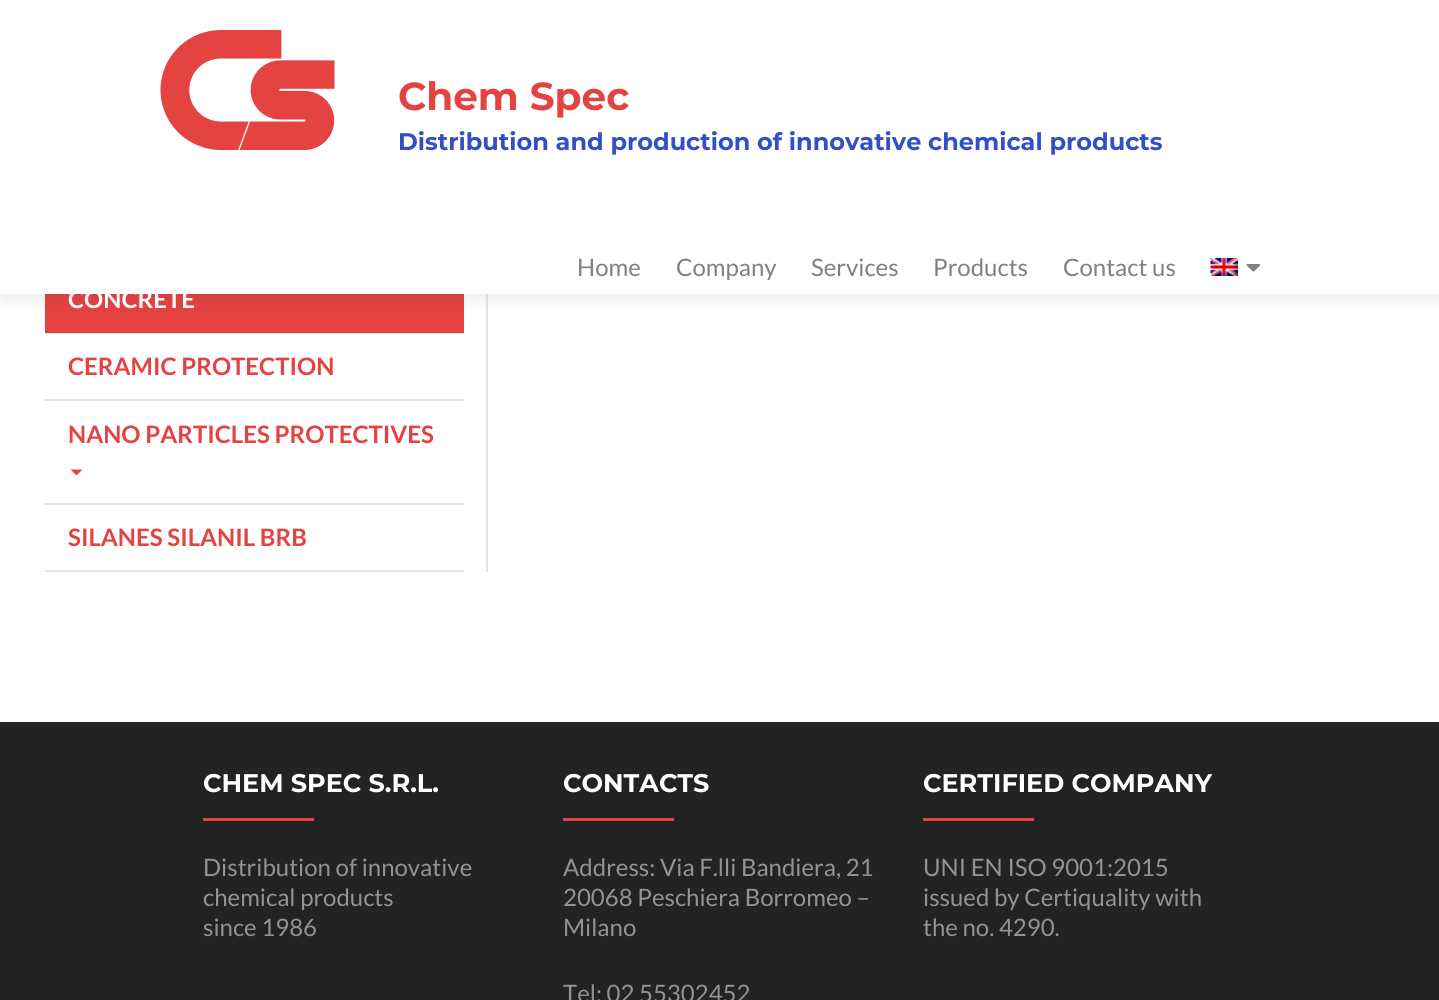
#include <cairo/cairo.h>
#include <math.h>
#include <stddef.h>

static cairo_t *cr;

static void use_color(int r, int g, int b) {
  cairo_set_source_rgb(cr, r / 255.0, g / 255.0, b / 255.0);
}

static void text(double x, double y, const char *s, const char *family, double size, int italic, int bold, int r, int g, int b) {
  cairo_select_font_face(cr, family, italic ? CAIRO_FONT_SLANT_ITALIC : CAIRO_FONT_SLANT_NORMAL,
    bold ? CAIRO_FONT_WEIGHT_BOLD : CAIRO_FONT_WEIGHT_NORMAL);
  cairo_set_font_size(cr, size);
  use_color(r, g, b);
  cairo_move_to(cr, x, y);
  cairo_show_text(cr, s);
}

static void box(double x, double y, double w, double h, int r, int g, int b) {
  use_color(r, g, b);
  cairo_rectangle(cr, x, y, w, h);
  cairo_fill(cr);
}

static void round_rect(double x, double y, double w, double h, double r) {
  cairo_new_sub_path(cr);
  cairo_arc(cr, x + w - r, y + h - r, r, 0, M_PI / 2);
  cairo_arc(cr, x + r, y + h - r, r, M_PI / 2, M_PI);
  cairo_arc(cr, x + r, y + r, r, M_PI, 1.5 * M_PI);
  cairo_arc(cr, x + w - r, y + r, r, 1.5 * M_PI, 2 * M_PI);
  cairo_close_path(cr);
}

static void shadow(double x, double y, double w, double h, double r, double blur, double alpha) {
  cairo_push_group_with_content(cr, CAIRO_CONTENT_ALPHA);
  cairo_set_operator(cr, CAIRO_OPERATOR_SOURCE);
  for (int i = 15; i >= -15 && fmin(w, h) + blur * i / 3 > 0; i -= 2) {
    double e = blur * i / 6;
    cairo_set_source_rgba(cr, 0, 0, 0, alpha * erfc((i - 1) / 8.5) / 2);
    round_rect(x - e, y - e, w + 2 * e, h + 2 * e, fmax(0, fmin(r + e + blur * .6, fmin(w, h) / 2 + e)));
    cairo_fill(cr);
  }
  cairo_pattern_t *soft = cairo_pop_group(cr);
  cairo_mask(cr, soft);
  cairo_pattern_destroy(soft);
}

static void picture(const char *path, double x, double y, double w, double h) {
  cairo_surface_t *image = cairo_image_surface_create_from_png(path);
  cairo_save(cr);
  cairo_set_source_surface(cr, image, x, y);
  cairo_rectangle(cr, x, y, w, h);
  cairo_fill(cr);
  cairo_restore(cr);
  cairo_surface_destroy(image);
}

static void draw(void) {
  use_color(255, 255, 255);
  cairo_paint(cr);
  box(45, 333, 419, 1, 230, 230, 230);
  box(486, 294, 2, 278, 230, 230, 230);
  box(45, 294, 419, 38, 229, 66, 66);
  use_color(50, 50, 50);
  shadow(0, 8, 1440, 294, 0, 8, 0.08);
  box(45, 332, 419, 1, 206, 59, 59);
  box(45, 399, 419, 2, 230, 230, 230);
  box(45, 503, 419, 2, 230, 230, 230);
  use_color(229, 66, 66);
  cairo_new_path(cr);
  cairo_move_to(cr, 70.5, 469.5);
  cairo_line_to(cr, 82.5, 469.5);
  cairo_line_to(cr, 76.5, 475.5);
  cairo_close_path(cr);
  cairo_fill(cr);
  box(45, 570, 419, 2, 230, 230, 230);
  box(0, 722, 1439, 278, 35, 35, 35);
  box(203, 818, 111, 3, 229, 66, 66);
  box(563, 818, 111, 3, 229, 66, 66);
  box(923, 818, 111, 3, 229, 66, 66);
  text(68, 308, "CONCRETE", "Lato", 24, 0, 1, 254, 254, 254);
  box(0, 0, 1439, 294, 255, 255, 255);
  picture("img_03.png", 1246, 264, 15, 8);
  picture("img_02.png", 1210, 258, 28, 18);
  text(1063, 276, "Contact us", "Lato", 24, 0, 0, 128, 128, 128);
  text(933, 276, "Products", "Lato", 24, 0, 0, 128, 128, 128);
  text(811, 276, "Services", "Lato", 24, 0, 0, 128, 128, 128);
  text(676, 276, "Company", "Lato", 24, 0, 0, 128, 128, 128);
  text(577, 276, "Home", "Lato", 24, 0, 0, 128, 128, 128);
  picture("img_01.png", 160, 30, 175, 120);
  text(398, 150, "Distribution and production of innovative chemical products", "Montserrat Thin", 24, 0, 0, 50, 80, 197);
  text(398, 110, "Chem Spec", "Montserrat Thin", 39, 0, 0, 229, 66, 66);
  text(68, 375, "CERAMIC PROTECTION", "Lato", 24, 0, 1, 229, 66, 66);
  text(68, 443, "NANO PARTICLES PROTECTIVES", "Lato", 24, 0, 1, 229, 66, 66);
  text(68, 546, "SILANES SILANIL BRB", "Lato", 24, 0, 1, 229, 66, 66);
  text(203, 792, "CHEM SPEC S.R.L.", "Montserrat Thin", 25.5, 0, 0, 254, 254, 254);
  text(203, 876, "Distribution of innovative", "Lato", 24, 0, 0, 147, 147, 147);
  text(203, 906, "chemical products", "Lato", 24, 0, 0, 147, 147, 147);
  text(203, 936, "since 1986", "Lato", 24, 0, 0, 147, 147, 147);
  text(563, 792, "CONTACTS", "Montserrat Thin", 25.5, 0, 0, 254, 254, 254);
  text(563, 876, "Address: Via F.lli Bandiera, 21", "Lato", 24, 0, 0, 147, 147, 147);
  text(563, 906, "20068 Peschiera Borromeo –", "Lato", 24, 0, 0, 147, 147, 147);
  text(563, 936, "Milano", "Lato", 24, 0, 0, 147, 147, 147);
  text(563, 1002, "Tel: 02 55302452", "Lato", 24, 0, 0, 147, 147, 147);
  text(923, 792, "CERTIFIED COMPANY", "Montserrat Thin", 25.5, 0, 0, 254, 254, 254);
  text(923, 876, "UNI EN ISO 9001:2015", "Lato", 24, 0, 0, 147, 147, 147);
  text(923, 906, "issued by Certiquality with", "Lato", 24, 0, 0, 147, 147, 147);
  text(923, 936, "the no. 4290.", "Lato", 24, 0, 0, 147, 147, 147);
}

int main(void) {
  cairo_surface_t *surface = cairo_image_surface_create(CAIRO_FORMAT_RGB24, 1439, 1000);
  cr = cairo_create(surface);
  cairo_font_options_t *options = cairo_font_options_create();
  cairo_font_options_set_hint_metrics(options, CAIRO_HINT_METRICS_OFF);
  cairo_font_options_set_hint_style(options, CAIRO_HINT_STYLE_NONE);
  cairo_set_font_options(cr, options);
  cairo_set_miter_limit(cr, 4);
  draw();
  cairo_surface_write_to_png(surface, "out.png");
  cairo_font_options_destroy(options);
  cairo_destroy(cr);
  cairo_surface_destroy(surface);
  return 0;
}
